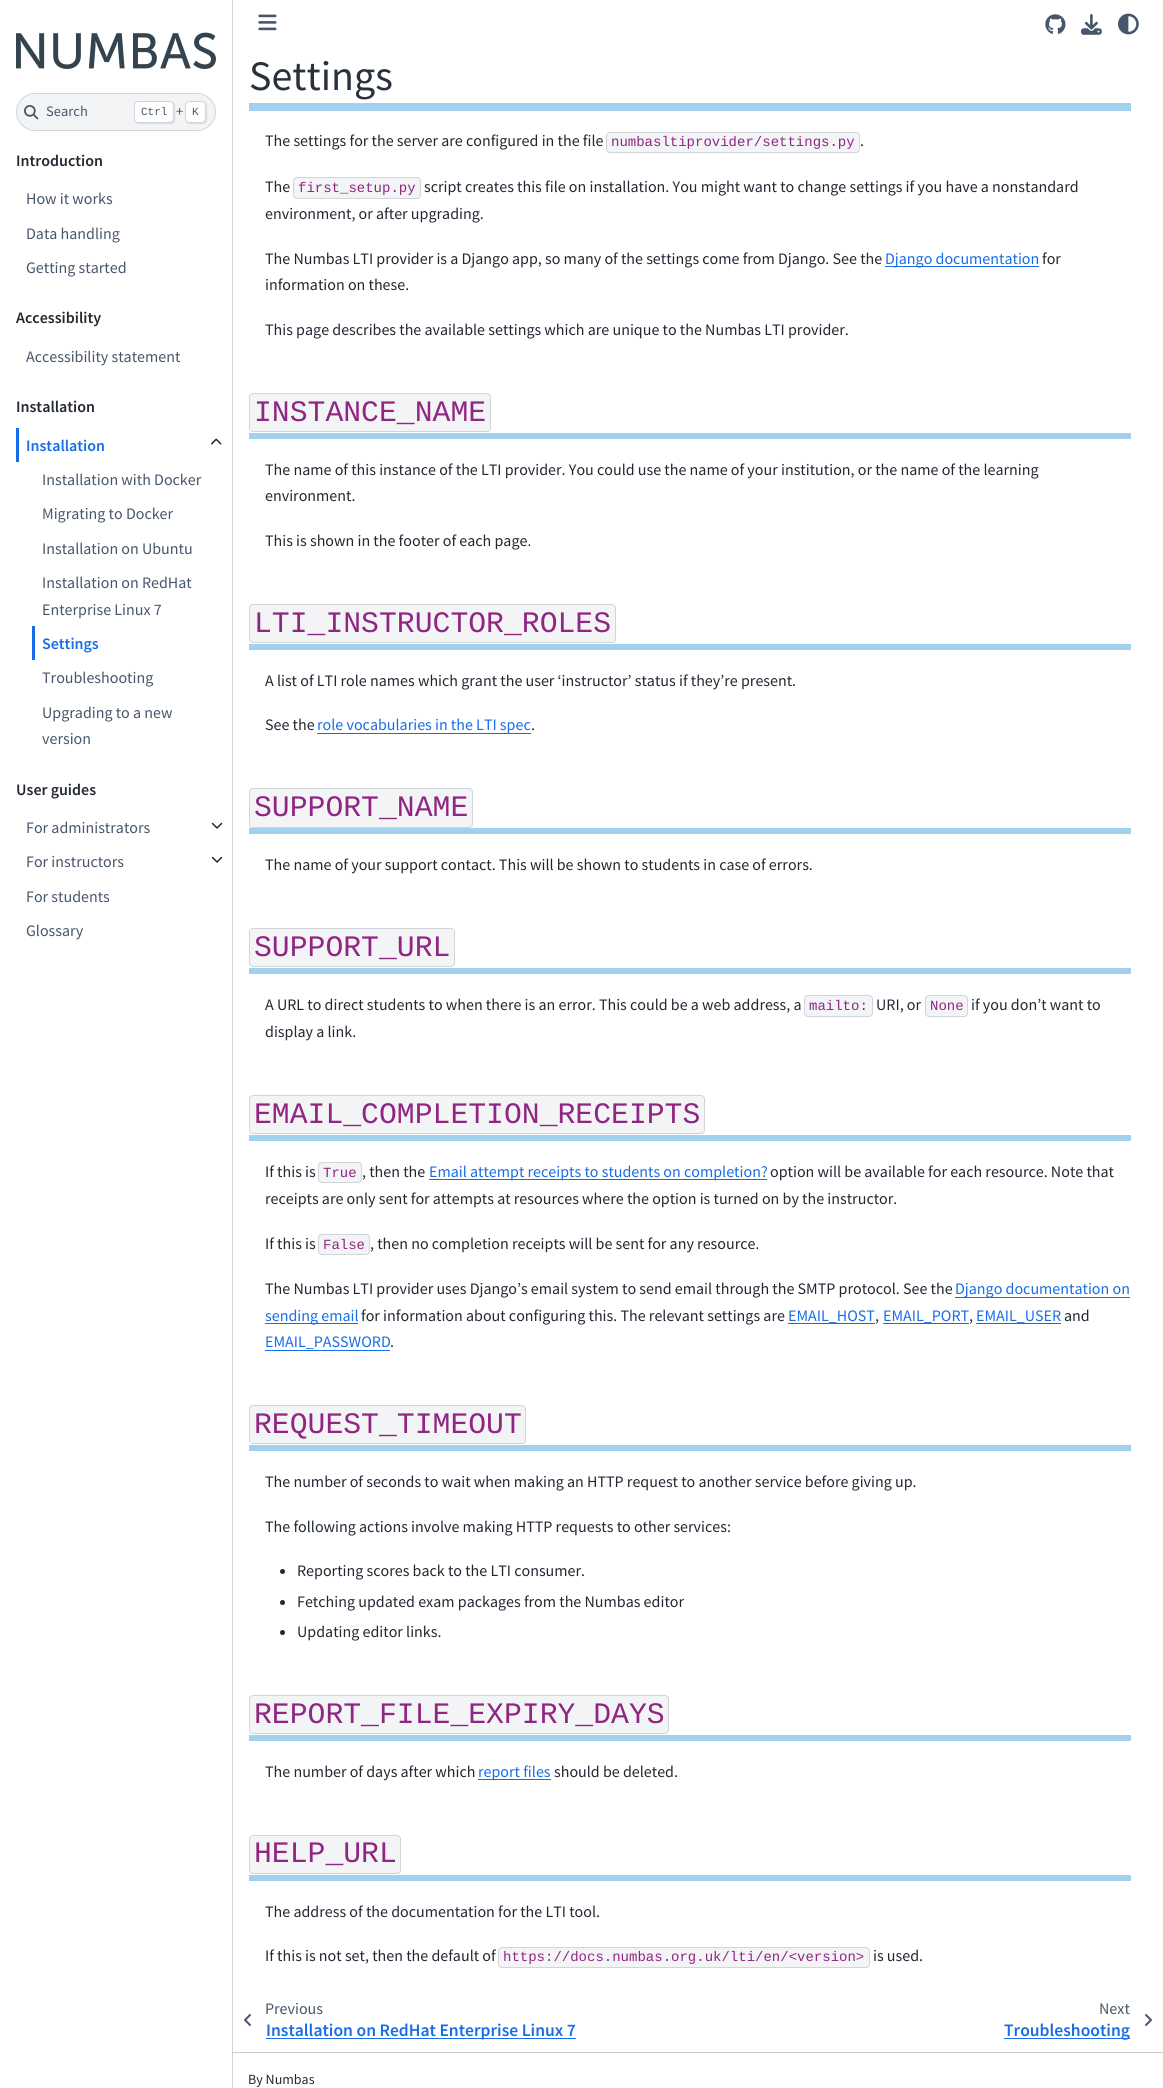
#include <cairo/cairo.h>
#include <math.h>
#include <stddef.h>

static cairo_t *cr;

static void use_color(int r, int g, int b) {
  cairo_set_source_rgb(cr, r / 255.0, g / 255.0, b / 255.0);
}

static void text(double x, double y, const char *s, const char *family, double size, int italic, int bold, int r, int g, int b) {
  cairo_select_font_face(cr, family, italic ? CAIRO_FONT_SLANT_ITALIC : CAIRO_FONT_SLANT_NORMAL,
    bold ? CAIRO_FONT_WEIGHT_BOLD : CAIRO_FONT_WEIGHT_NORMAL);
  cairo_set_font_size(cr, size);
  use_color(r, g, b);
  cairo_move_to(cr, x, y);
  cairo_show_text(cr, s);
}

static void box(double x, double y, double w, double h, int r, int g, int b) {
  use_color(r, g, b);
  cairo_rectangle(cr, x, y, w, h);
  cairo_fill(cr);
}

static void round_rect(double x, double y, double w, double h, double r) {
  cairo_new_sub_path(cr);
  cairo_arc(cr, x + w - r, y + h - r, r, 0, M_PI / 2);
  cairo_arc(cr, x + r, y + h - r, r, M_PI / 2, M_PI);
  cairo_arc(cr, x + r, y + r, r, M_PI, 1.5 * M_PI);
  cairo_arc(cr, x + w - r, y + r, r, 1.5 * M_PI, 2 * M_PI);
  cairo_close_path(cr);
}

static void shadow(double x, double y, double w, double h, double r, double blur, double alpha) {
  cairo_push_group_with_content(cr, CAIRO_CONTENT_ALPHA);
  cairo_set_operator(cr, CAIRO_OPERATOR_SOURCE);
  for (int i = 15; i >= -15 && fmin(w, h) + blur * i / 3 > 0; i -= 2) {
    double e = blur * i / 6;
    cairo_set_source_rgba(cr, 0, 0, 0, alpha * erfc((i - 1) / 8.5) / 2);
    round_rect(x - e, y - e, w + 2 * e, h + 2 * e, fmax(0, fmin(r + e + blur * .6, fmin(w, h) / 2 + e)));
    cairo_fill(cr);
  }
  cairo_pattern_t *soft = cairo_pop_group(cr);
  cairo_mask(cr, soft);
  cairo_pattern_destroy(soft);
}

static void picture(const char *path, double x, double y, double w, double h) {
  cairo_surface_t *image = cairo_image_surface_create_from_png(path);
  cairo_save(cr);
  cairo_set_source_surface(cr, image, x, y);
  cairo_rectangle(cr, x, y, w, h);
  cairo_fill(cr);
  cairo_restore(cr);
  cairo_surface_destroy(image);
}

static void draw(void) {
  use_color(255, 255, 255);
  cairo_paint(cr);
  box(232, 0, 1, 2088, 209, 213, 218);
  picture("img_01.png", 16, 32, 200, 37);
  use_color(243, 244, 245);
  round_rect(16.5, 93.5, 199, 37, 18.5);
  cairo_fill_preserve(cr);
  use_color(209, 213, 218);
  cairo_set_line_width(cr, 1);
  cairo_stroke(cr);
  picture("img_02.png", 24, 105, 15, 15);
  use_color(0, 0, 0);
  shadow(135, 102, 40, 22, 4, 0.5, 0.1);
  use_color(255, 255, 255);
  round_rect(134.5, 101.5, 39, 21, 3.5);
  cairo_fill_preserve(cr);
  use_color(209, 213, 218);
  cairo_stroke(cr);
  use_color(0, 0, 0);
  shadow(186, 102, 21, 22, 4, 0.5, 0.1);
  use_color(255, 255, 255);
  round_rect(185.5, 101.5, 20, 21, 3.5);
  cairo_fill_preserve(cr);
  use_color(209, 213, 218);
  cairo_stroke(cr);
  box(16, 428, 3, 34, 23, 109, 232);
  picture("img_03.png", 211, 438, 11, 7);
  box(32, 626, 3, 34, 23, 109, 232);
  picture("img_04.png", 211, 822, 12, 7);
  picture("img_04.png", 211, 856, 12, 7);
  picture("img_05.png", 258, 14, 19, 17);
  picture("img_06.png", 1045, 14, 21, 20);
  picture("img_07.png", 1081, 14, 21, 21);
  picture("img_08.png", 1118, 13, 21, 22);
  box(249, 103, 882, 8, 162, 209, 240);
  use_color(243, 244, 245);
  round_rect(606.5, 132.5, 253, 20, 3.5);
  cairo_fill_preserve(cr);
  use_color(209, 213, 218);
  cairo_stroke(cr);
  use_color(243, 244, 245);
  round_rect(293.5, 177.5, 127, 21, 3.5);
  cairo_fill_preserve(cr);
  use_color(209, 213, 218);
  cairo_stroke(cr);
  box(885, 266, 154, 1, 23, 109, 232);
  box(249, 433, 882, 6, 162, 209, 240);
  use_color(243, 244, 245);
  round_rect(249.5, 393.5, 241, 38, 3.5);
  cairo_fill_preserve(cr);
  use_color(209, 213, 218);
  cairo_stroke(cr);
  box(249, 644, 882, 6, 162, 209, 240);
  use_color(243, 244, 245);
  round_rect(249.5, 604.5, 366, 38, 3.5);
  cairo_fill_preserve(cr);
  use_color(209, 213, 218);
  cairo_stroke(cr);
  box(317, 733, 214, 1, 23, 109, 232);
  box(249, 828, 882, 6, 162, 209, 240);
  use_color(243, 244, 245);
  round_rect(249.5, 788.5, 223, 39, 3.5);
  cairo_fill_preserve(cr);
  use_color(209, 213, 218);
  cairo_stroke(cr);
  box(249, 968, 882, 6, 162, 209, 240);
  use_color(243, 244, 245);
  round_rect(249.5, 928.5, 205, 38, 3.5);
  cairo_fill_preserve(cr);
  use_color(209, 213, 218);
  cairo_stroke(cr);
  use_color(243, 244, 245);
  round_rect(804.5, 995.5, 68, 21, 3.5);
  cairo_fill_preserve(cr);
  use_color(209, 213, 218);
  cairo_stroke(cr);
  use_color(243, 244, 245);
  round_rect(925.5, 995.5, 42, 21, 3.5);
  cairo_fill_preserve(cr);
  use_color(209, 213, 218);
  cairo_stroke(cr);
  box(249, 1135, 882, 6, 162, 209, 240);
  use_color(243, 244, 245);
  round_rect(249.5, 1095.5, 455, 38, 3.5);
  cairo_fill_preserve(cr);
  use_color(209, 213, 218);
  cairo_stroke(cr);
  use_color(243, 244, 245);
  round_rect(318.5, 1162.5, 43, 20, 3.5);
  cairo_fill_preserve(cr);
  use_color(209, 213, 218);
  cairo_stroke(cr);
  box(429, 1179, 338, 1, 23, 109, 232);
  use_color(243, 244, 245);
  round_rect(318.5, 1234.5, 51, 20, 3.5);
  cairo_fill_preserve(cr);
  use_color(209, 213, 218);
  cairo_stroke(cr);
  box(955, 1297, 175, 1, 23, 109, 232);
  box(265, 1323, 93, 1, 23, 109, 232);
  box(788, 1323, 87, 1, 23, 109, 232);
  box(883, 1323, 86, 1, 23, 109, 232);
  box(976, 1323, 85, 1, 23, 109, 232);
  box(265, 1350, 125, 1, 23, 109, 232);
  box(249, 1445, 882, 6, 162, 209, 240);
  use_color(243, 244, 245);
  round_rect(249.5, 1405.5, 276, 38, 3.5);
  cairo_fill_preserve(cr);
  use_color(209, 213, 218);
  cairo_stroke(cr);
  use_color(34, 40, 50);
  cairo_arc(cr, 282.5, 1571.5, 2.5, 0, 2 * M_PI);
  cairo_fill(cr);
  cairo_arc(cr, 282.5, 1602.5, 2.5, 0, 2 * M_PI);
  cairo_fill(cr);
  cairo_arc(cr, 282.5, 1632.5, 2.5, 0, 2 * M_PI);
  cairo_fill(cr);
  box(249, 1735, 882, 6, 162, 209, 240);
  use_color(243, 244, 245);
  round_rect(249.5, 1695.5, 419, 38, 3.5);
  cairo_fill_preserve(cr);
  use_color(209, 213, 218);
  cairo_stroke(cr);
  box(478, 1779, 73, 1, 23, 109, 232);
  box(249, 1875, 882, 6, 162, 209, 240);
  use_color(243, 244, 245);
  round_rect(249.5, 1835.5, 151, 38, 3.5);
  cairo_fill_preserve(cr);
  use_color(209, 213, 218);
  cairo_stroke(cr);
  use_color(243, 244, 245);
  round_rect(498.5, 1947.5, 371, 20, 3.5);
  cairo_fill_preserve(cr);
  use_color(209, 213, 218);
  cairo_stroke(cr);
  picture("img_09.png", 244, 2014, 7, 12);
  box(266, 2038, 310, 1, 23, 109, 232);
  box(1004, 2038, 126, 1, 23, 109, 232);
  picture("img_10.png", 1145, 2014, 7, 12);
  box(233, 2052, 930, 1, 204, 204, 204);
  text(46, 116, "Search", "Source Sans Pro", 14.5, 0, 0, 72, 86, 107);
  text(141, 115, "Ctrl", "Liberation Mono", 11, 0, 0, 72, 86, 107);
  text(176, 116, "+", "Source Sans Pro", 14.5, 0, 0, 72, 86, 107);
  text(192, 115, "K", "Liberation Mono", 11, 0, 0, 72, 86, 107);
  text(16, 166, "Introduction", "Source Sans Pro SemiBold", 16, 0, 0, 34, 40, 50);
  text(26, 204, "How it works", "Source Sans Pro", 16, 0, 0, 72, 86, 107);
  text(26, 239, "Data handling", "Source Sans Pro", 16, 0, 0, 72, 86, 107);
  text(26, 273, "Getting started", "Source Sans Pro", 16, 0, 0, 72, 86, 107);
  text(16, 323, "Accessibility", "Source Sans Pro SemiBold", 16, 0, 0, 34, 40, 50);
  text(26, 362, "Accessibility statement", "Source Sans Pro", 16, 0, 0, 72, 86, 107);
  text(16, 412, "Installation", "Source Sans Pro SemiBold", 16, 0, 0, 34, 40, 50);
  text(26, 451, "Installation", "Source Sans Pro SemiBold", 16, 0, 0, 23, 109, 232);
  text(42, 485, "Installation with Docker", "Source Sans Pro", 16, 0, 0, 72, 86, 107);
  text(42, 519, "Migrating to Docker", "Source Sans Pro", 16, 0, 0, 72, 86, 107);
  text(42, 554, "Installation on Ubuntu", "Source Sans Pro", 16, 0, 0, 72, 86, 107);
  text(42, 588, "Installation on RedHat", "Source Sans Pro", 16, 0, 0, 72, 86, 107);
  text(42, 615, "Enterprise Linux 7", "Source Sans Pro", 16, 0, 0, 72, 86, 107);
  text(42, 649, "Settings", "Source Sans Pro SemiBold", 16, 0, 0, 23, 109, 232);
  text(42, 683, "Troubleshooting", "Source Sans Pro", 16, 0, 0, 72, 86, 107);
  text(42, 718, "Upgrading to a new", "Source Sans Pro", 16, 0, 0, 72, 86, 107);
  text(42, 744, "version", "Source Sans Pro", 16, 0, 0, 72, 86, 107);
  text(16, 795, "User guides", "Source Sans Pro SemiBold", 16, 0, 0, 34, 40, 50);
  text(26, 833, "For administrators", "Source Sans Pro", 16, 0, 0, 72, 86, 107);
  text(26, 867, "For instructors", "Source Sans Pro", 16, 0, 0, 72, 86, 107);
  text(26, 902, "For students", "Source Sans Pro", 16, 0, 0, 72, 86, 107);
  text(26, 936, "Glossary", "Source Sans Pro", 16, 0, 0, 72, 86, 107);
  text(249, 90, "Settings", "Source Sans Pro", 42, 0, 0, 41, 49, 61);
  text(265, 146, "The settings for the server are configured in the file", "Source Sans Pro", 16, 0, 0, 34, 40, 50);
  text(611, 146, "numbasltiprovider/settings.py", "Liberation Mono", 14, 0, 0, 145, 37, 131);
  text(860, 146, ".", "Source Sans Pro", 16, 0, 0, 34, 40, 50);
  text(265, 192, "The", "Source Sans Pro", 16, 0, 0, 34, 40, 50);
  text(298, 192, "first_setup.py", "Liberation Mono", 14, 0, 0, 145, 37, 131);
  text(424, 192, "script creates this file on installation. You might want to change settings if you have a nonstandard", "Source Sans Pro", 16, 0, 0, 34, 40, 50);
  text(265, 219, "environment, or after upgrading.", "Source Sans Pro", 16, 0, 0, 34, 40, 50);
  text(265, 264, "The Numbas LTI provider is a Django app, so many of the settings come from Django. See the", "Source Sans Pro", 16, 0, 0, 34, 40, 50);
  text(885, 264, "Django documentation", "Source Sans Pro", 16, 0, 0, 23, 109, 232);
  text(1042, 264, "for", "Source Sans Pro", 16, 0, 0, 34, 40, 50);
  text(265, 290, "information on these.", "Source Sans Pro", 16, 0, 0, 34, 40, 50);
  text(265, 335, "This page describes the available settings which are unique to the Numbas LTI provider.", "Source Sans Pro", 16, 0, 0, 34, 40, 50);
  text(254, 421, "INSTANCE_NAME", "Liberation Mono", 29.75, 0, 0, 145, 37, 131);
  text(265, 475, "The name of this instance of the LTI provider. You could use the name of your institution, or the name of the learning", "Source Sans Pro", 16, 0, 0, 34, 40, 50);
  text(265, 501, "environment.", "Source Sans Pro", 16, 0, 0, 34, 40, 50);
  text(265, 546, "This is shown in the footer of each page.", "Source Sans Pro", 16, 0, 0, 34, 40, 50);
  text(254, 632, "LTI_INSTRUCTOR_ROLES", "Liberation Mono", 29.75, 0, 0, 145, 37, 131);
  text(265, 686, "A list of LTI role names which grant the user ‘instructor’ status if they’re present.", "Source Sans Pro", 16, 0, 0, 34, 40, 50);
  text(265, 730, "See the", "Source Sans Pro", 16, 0, 0, 34, 40, 50);
  text(317, 730, "role vocabularies in the LTI spec", "Source Sans Pro", 16, 0, 0, 23, 109, 232);
  text(531, 730, ".", "Source Sans Pro", 16, 0, 0, 34, 40, 50);
  text(254, 816, "SUPPORT_NAME", "Liberation Mono", 29.75, 0, 0, 145, 37, 131);
  text(265, 870, "The name of your support contact. This will be shown to students in case of errors.", "Source Sans Pro", 16, 0, 0, 34, 40, 50);
  text(254, 956, "SUPPORT_URL", "Liberation Mono", 29.75, 0, 0, 145, 37, 131);
  text(265, 1010, "A URL to direct students to when there is an error. This could be a web address, a", "Source Sans Pro", 16, 0, 0, 34, 40, 50);
  text(809, 1010, "mailto:", "Liberation Mono", 14, 0, 0, 145, 37, 131);
  text(876, 1010, "URI, or", "Source Sans Pro", 16, 0, 0, 34, 40, 50);
  text(930, 1010, "None", "Liberation Mono", 14, 0, 0, 145, 37, 131);
  text(971, 1010, "if you don’t want to", "Source Sans Pro", 16, 0, 0, 34, 40, 50);
  text(265, 1037, "display a link.", "Source Sans Pro", 16, 0, 0, 34, 40, 50);
  text(254, 1123, "EMAIL_COMPLETION_RECEIPTS", "Liberation Mono", 29.75, 0, 0, 145, 37, 131);
  text(265, 1177, "If this is", "Source Sans Pro", 16, 0, 0, 34, 40, 50);
  text(323, 1177, "True", "Liberation Mono", 14, 0, 0, 145, 37, 131);
  text(362, 1177, ", then the", "Source Sans Pro", 16, 0, 0, 34, 40, 50);
  text(429, 1177, "Email attempt receipts to students on completion?", "Source Sans Pro", 16, 0, 0, 23, 109, 232);
  text(770, 1177, "option will be available for each resource. Note that", "Source Sans Pro", 16, 0, 0, 34, 40, 50);
  text(265, 1204, "receipts are only sent for attempts at resources where the option is turned on by the instructor.", "Source Sans Pro", 16, 0, 0, 34, 40, 50);
  text(265, 1249, "If this is", "Source Sans Pro", 16, 0, 0, 34, 40, 50);
  text(323, 1249, "False", "Liberation Mono", 14, 0, 0, 145, 37, 131);
  text(370, 1249, ", then no completion receipts will be sent for any resource.", "Source Sans Pro", 16, 0, 0, 34, 40, 50);
  text(265, 1294, "The Numbas LTI provider uses Django’s email system to send email through the SMTP protocol. See the", "Source Sans Pro", 16, 0, 0, 34, 40, 50);
  text(955, 1294, "Django documentation on", "Source Sans Pro", 16, 0, 0, 23, 109, 232);
  text(265, 1321, "sending email", "Source Sans Pro", 16, 0, 0, 23, 109, 232);
  text(361, 1321, "for information about configuring this. The relevant settings are", "Source Sans Pro", 16, 0, 0, 34, 40, 50);
  text(788, 1321, "EMAIL_HOST", "Source Sans Pro", 16, 0, 0, 23, 109, 232);
  text(875, 1321, ",", "Source Sans Pro", 16, 0, 0, 34, 40, 50);
  text(883, 1321, "EMAIL_PORT", "Source Sans Pro", 16, 0, 0, 23, 109, 232);
  text(969, 1321, ",", "Source Sans Pro", 16, 0, 0, 34, 40, 50);
  text(976, 1321, "EMAIL_USER", "Source Sans Pro", 16, 0, 0, 23, 109, 232);
  text(1064, 1321, "and", "Source Sans Pro", 16, 0, 0, 34, 40, 50);
  text(265, 1347, "EMAIL_PASSWORD", "Source Sans Pro", 16, 0, 0, 23, 109, 232);
  text(390, 1347, ".", "Source Sans Pro", 16, 0, 0, 34, 40, 50);
  text(254, 1433, "REQUEST_TIMEOUT", "Liberation Mono", 29.75, 0, 0, 145, 37, 131);
  text(265, 1487, "The number of seconds to wait when making an HTTP request to another service before giving up.", "Source Sans Pro", 16, 0, 0, 34, 40, 50);
  text(265, 1532, "The following actions involve making HTTP requests to other services:", "Source Sans Pro", 16, 0, 0, 34, 40, 50);
  text(297, 1576, "Reporting scores back to the LTI consumer.", "Source Sans Pro", 16, 0, 0, 34, 40, 50);
  text(297, 1607, "Fetching updated exam packages from the Numbas editor", "Source Sans Pro", 16, 0, 0, 34, 40, 50);
  text(297, 1637, "Updating editor links.", "Source Sans Pro", 16, 0, 0, 34, 40, 50);
  text(254, 1723, "REPORT_FILE_EXPIRY_DAYS", "Liberation Mono", 29.75, 0, 0, 145, 37, 131);
  text(265, 1777, "The number of days after which", "Source Sans Pro", 16, 0, 0, 34, 40, 50);
  text(478, 1777, "report files", "Source Sans Pro", 16, 0, 0, 23, 109, 232);
  text(554, 1777, "should be deleted.", "Source Sans Pro", 16, 0, 0, 34, 40, 50);
  text(254, 1862, "HELP_URL", "Liberation Mono", 29.75, 0, 0, 145, 37, 131);
  text(265, 1917, "The address of the documentation for the LTI tool.", "Source Sans Pro", 16, 0, 0, 34, 40, 50);
  text(265, 1961, "If this is not set, then the default of", "Source Sans Pro", 16, 0, 0, 34, 40, 50);
  text(503, 1961, "https://docs.numbas.org.uk/lti/en/<version>", "Liberation Mono", 14, 0, 0, 145, 37, 131);
  text(873, 1961, "is used.", "Source Sans Pro", 16, 0, 0, 34, 40, 50);
  text(265, 2014, "Previous", "Source Sans Pro", 16, 0, 0, 72, 86, 107);
  text(266, 2036, "Installation on RedHat Enterprise Linux 7", "Source Sans Pro SemiBold", 17.6, 0, 0, 23, 109, 232);
  text(1099, 2014, "Next", "Source Sans Pro", 16, 0, 0, 72, 86, 107);
  text(1004, 2036, "Troubleshooting", "Source Sans Pro SemiBold", 17.6, 0, 0, 23, 109, 232);
  text(248, 2084, "By Numbas", "Source Sans Pro", 14, 0, 0, 34, 40, 50);
}

int main(void) {
  cairo_surface_t *surface = cairo_image_surface_create(CAIRO_FORMAT_RGB24, 1163, 2088);
  cr = cairo_create(surface);
  cairo_font_options_t *options = cairo_font_options_create();
  cairo_font_options_set_hint_metrics(options, CAIRO_HINT_METRICS_OFF);
  cairo_font_options_set_hint_style(options, CAIRO_HINT_STYLE_NONE);
  cairo_set_font_options(cr, options);
  cairo_set_miter_limit(cr, 4);
  draw();
  cairo_surface_write_to_png(surface, "out.png");
  cairo_font_options_destroy(options);
  cairo_destroy(cr);
  cairo_surface_destroy(surface);
  return 0;
}
